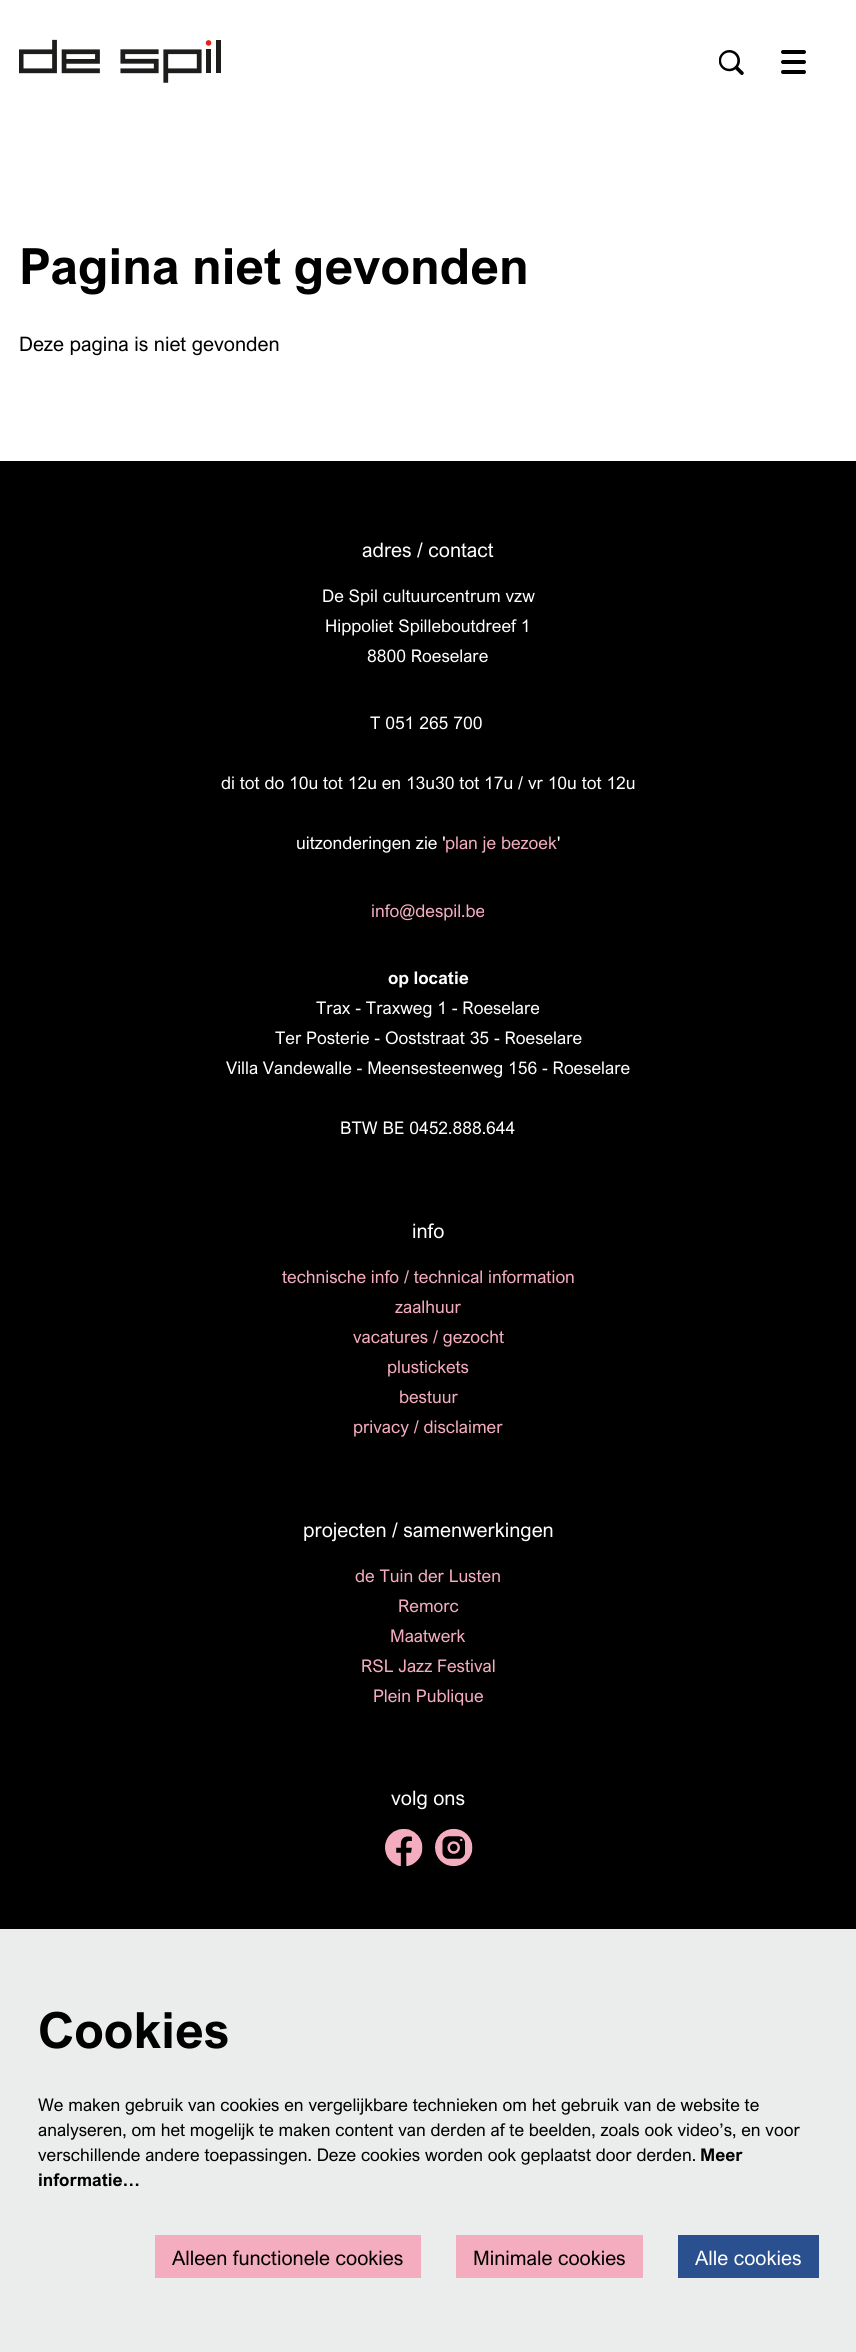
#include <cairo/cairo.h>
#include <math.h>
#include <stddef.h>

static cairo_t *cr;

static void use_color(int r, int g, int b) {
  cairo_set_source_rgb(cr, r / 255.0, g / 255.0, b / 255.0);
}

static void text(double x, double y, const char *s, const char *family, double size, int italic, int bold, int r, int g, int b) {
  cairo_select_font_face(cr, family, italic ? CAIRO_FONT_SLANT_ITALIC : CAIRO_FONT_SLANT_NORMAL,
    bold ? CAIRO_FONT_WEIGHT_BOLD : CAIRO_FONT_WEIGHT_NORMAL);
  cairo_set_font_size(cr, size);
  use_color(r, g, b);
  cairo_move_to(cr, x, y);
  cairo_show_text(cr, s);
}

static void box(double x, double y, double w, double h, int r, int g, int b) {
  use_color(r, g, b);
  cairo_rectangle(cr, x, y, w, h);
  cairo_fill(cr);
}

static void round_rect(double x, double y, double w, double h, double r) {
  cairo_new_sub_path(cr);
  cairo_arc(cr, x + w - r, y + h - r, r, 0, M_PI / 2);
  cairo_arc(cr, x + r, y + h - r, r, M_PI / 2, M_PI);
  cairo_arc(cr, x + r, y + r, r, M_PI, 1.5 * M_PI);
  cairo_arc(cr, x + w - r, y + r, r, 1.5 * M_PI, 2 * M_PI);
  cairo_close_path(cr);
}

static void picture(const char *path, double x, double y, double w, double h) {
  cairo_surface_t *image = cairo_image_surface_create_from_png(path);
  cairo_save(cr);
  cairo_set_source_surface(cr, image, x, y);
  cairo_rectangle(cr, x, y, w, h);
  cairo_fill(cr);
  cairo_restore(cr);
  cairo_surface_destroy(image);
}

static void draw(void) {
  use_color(255, 255, 255);
  cairo_paint(cr);
  picture("img_01.png", 19, 39, 202, 44);
  picture("img_02.png", 719, 50, 25, 25);
  use_color(0, 0, 0);
  round_rect(781, 50, 25, 4, 2);
  cairo_fill(cr);
  round_rect(781, 60, 25, 4, 2);
  cairo_fill(cr);
  round_rect(781, 70, 25, 4, 2);
  cairo_fill(cr);
  box(0, 461, 856, 1468, 0, 0, 0);
  picture("img_03.png", 385, 1828, 38, 39);
  picture("img_04.png", 435, 1828, 38, 39);
  box(0, 1929, 856, 423, 235, 236, 236);
  box(155, 2235, 266, 43, 244, 172, 191);
  box(456, 2235, 187, 43, 244, 172, 191);
  box(678, 2235, 141, 43, 43, 80, 143);
  text(19, 284, "Pagina niet gevonden", "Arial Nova", 50, 0, 1, 0, 0, 0);
  text(19, 351, "Deze pagina is niet gevonden", "Arial Nova", 20, 0, 0, 0, 0, 0);
  text(362, 557, "adres / contact", "Arial Nova", 20, 0, 0, 255, 255, 255);
  text(322, 602, "De Spil cultuurcentrum vzw", "Arial Nova", 17.5, 0, 0, 255, 255, 255);
  text(325, 632, "Hippoliet Spilleboutdreef 1", "Arial Nova", 17.5, 0, 0, 255, 255, 255);
  text(367, 662, "8800 Roeselare", "Arial Nova", 17.5, 0, 0, 255, 255, 255);
  text(370, 729, "T 051 265 700", "Arial Nova", 17.5, 0, 0, 255, 255, 255);
  text(221, 789, "di tot do 10u tot 12u en 13u30 tot 17u / vr 10u tot 12u", "Arial Nova", 17.5, 0, 0, 255, 255, 255);
  text(296, 849, "uitzonderingen zie '", "Arial Nova", 17.5, 0, 0, 255, 255, 255);
  text(445, 849, "plan je bezoek", "Arial Nova", 17.5, 0, 0, 244, 172, 191);
  text(557, 849, "'", "Arial Nova", 17.5, 0, 0, 255, 255, 255);
  text(371, 917, "info@despil.be", "Arial Nova", 17.5, 0, 0, 244, 172, 191);
  text(388, 984, "op locatie", "Arial Nova", 17.5, 0, 1, 255, 255, 255);
  text(316, 1014, "Trax - Traxweg 1 - Roeselare", "Arial Nova", 17.5, 0, 0, 255, 255, 255);
  text(275, 1044, "Ter Posterie - Ooststraat 35 - Roeselare", "Arial Nova", 17.5, 0, 0, 255, 255, 255);
  text(226, 1074, "Villa Vandewalle - Meensesteenweg 156 - Roeselare", "Arial Nova", 17.5, 0, 0, 255, 255, 255);
  text(340, 1134, "BTW BE 0452.888.644", "Arial Nova", 17.5, 0, 0, 255, 255, 255);
  text(412, 1238, "info", "Arial Nova", 20, 0, 0, 255, 255, 255);
  text(282, 1283, "technische info / technical information", "Arial Nova", 17.5, 0, 0, 244, 172, 191);
  text(395, 1313, "zaalhuur", "Arial Nova", 17.5, 0, 0, 244, 172, 191);
  text(353, 1343, "vacatures / gezocht", "Arial Nova", 17.5, 0, 0, 244, 172, 191);
  text(387, 1373, "plustickets", "Arial Nova", 17.5, 0, 0, 244, 172, 191);
  text(399, 1403, "bestuur", "Arial Nova", 17.5, 0, 0, 244, 172, 191);
  text(353, 1433, "privacy / disclaimer", "Arial Nova", 17.5, 0, 0, 244, 172, 191);
  text(303, 1537, "projecten / samenwerkingen", "Arial Nova", 20, 0, 0, 255, 255, 255);
  text(355, 1582, "de Tuin der Lusten", "Arial Nova", 17.5, 0, 0, 244, 172, 191);
  text(398, 1612, "Remorc", "Arial Nova", 17.5, 0, 0, 244, 172, 191);
  text(390, 1642, "Maatwerk", "Arial Nova", 17.5, 0, 0, 244, 172, 191);
  text(361, 1672, "RSL Jazz Festival", "Arial Nova", 17.5, 0, 0, 244, 172, 191);
  text(373, 1702, "Plein Publique", "Arial Nova", 17.5, 0, 0, 244, 172, 191);
  text(391, 1805, "volg ons", "Arial Nova", 20, 0, 0, 255, 255, 255);
  text(38, 2048, "Cookies", "Arial Nova", 50, 0, 1, 0, 0, 0);
  text(38, 2111, "We maken gebruik van cookies en vergelijkbare technieken om het gebruik van de website te", "Arial Nova", 17.5, 0, 0, 0, 0, 0);
  text(38, 2136, "analyseren, om het mogelijk te maken content van derden af te beelden, zoals ook video’s, en voor", "Arial Nova", 17.5, 0, 0, 0, 0, 0);
  text(38, 2161, "verschillende andere toepassingen. Deze cookies worden ook geplaatst door derden.", "Arial Nova", 17.5, 0, 0, 0, 0, 0);
  text(700, 2161, "Meer", "Arial Nova", 17.5, 0, 1, 0, 0, 0);
  text(38, 2186, "informatie…", "Arial Nova", 17.5, 0, 1, 0, 0, 0);
  text(172, 2265, "Alleen functionele cookies", "Arial Nova", 20, 0, 0, 0, 0, 0);
  text(473, 2265, "Minimale cookies", "Arial Nova", 20, 0, 0, 0, 0, 0);
  text(695, 2265, "Alle cookies", "Arial Nova", 20, 0, 0, 255, 255, 255);
}

int main(void) {
  cairo_surface_t *surface = cairo_image_surface_create(CAIRO_FORMAT_RGB24, 856, 2352);
  cr = cairo_create(surface);
  cairo_font_options_t *options = cairo_font_options_create();
  cairo_font_options_set_hint_metrics(options, CAIRO_HINT_METRICS_OFF);
  cairo_font_options_set_hint_style(options, CAIRO_HINT_STYLE_NONE);
  cairo_set_font_options(cr, options);
  cairo_set_miter_limit(cr, 4);
  draw();
  cairo_surface_write_to_png(surface, "out.png");
  cairo_font_options_destroy(options);
  cairo_destroy(cr);
  cairo_surface_destroy(surface);
  return 0;
}
